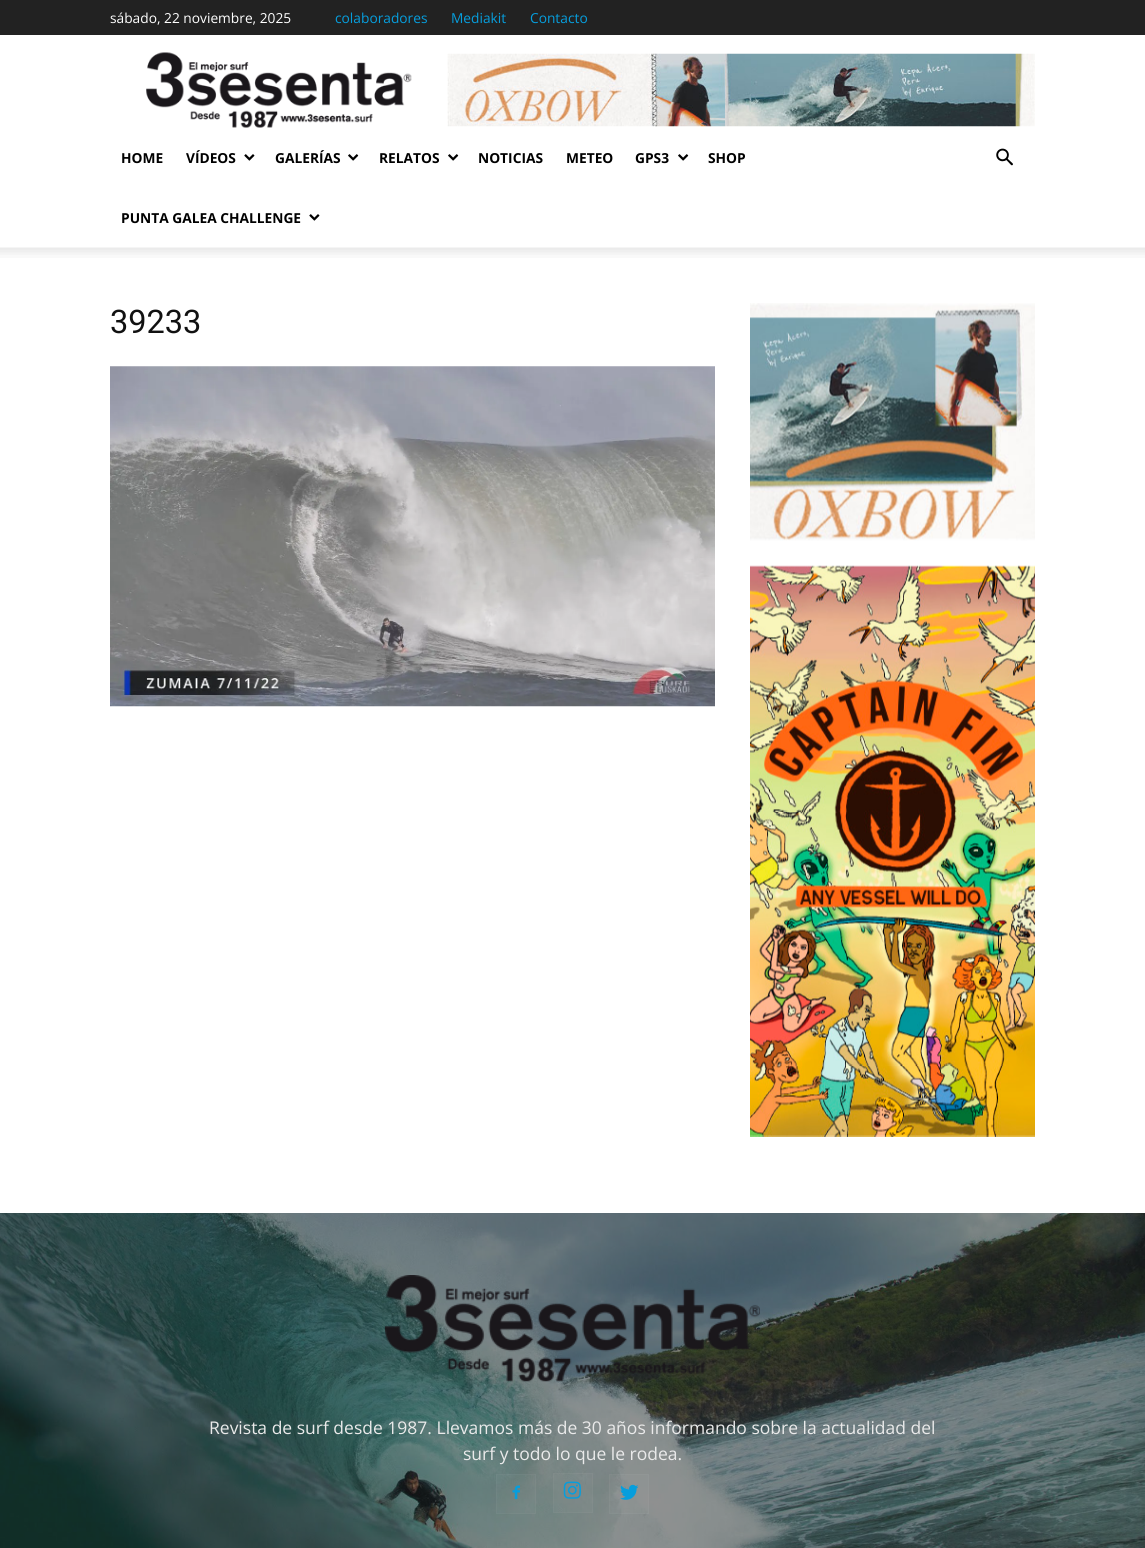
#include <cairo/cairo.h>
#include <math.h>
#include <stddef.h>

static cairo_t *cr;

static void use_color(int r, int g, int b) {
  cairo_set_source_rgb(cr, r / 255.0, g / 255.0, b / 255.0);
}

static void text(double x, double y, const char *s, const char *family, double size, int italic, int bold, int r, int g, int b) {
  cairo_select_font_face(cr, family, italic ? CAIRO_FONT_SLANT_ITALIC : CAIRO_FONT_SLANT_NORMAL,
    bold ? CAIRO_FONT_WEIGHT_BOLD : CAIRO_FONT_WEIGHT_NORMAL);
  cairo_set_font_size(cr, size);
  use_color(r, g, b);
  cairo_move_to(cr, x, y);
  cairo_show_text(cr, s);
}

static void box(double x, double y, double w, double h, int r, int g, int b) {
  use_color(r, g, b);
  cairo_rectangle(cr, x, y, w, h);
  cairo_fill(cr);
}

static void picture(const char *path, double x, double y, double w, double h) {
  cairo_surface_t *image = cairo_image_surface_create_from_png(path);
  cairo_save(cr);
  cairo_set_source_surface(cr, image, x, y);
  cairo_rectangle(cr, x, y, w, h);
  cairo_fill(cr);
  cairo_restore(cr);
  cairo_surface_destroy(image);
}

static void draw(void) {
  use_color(255, 255, 255);
  cairo_paint(cr);
  box(0, 0, 1145, 35, 34, 34, 34);
  picture("img_01.png", 146, 52, 266, 76);
  picture("img_02.png", 447, 53, 588, 74);
  picture("img_03.png", 244, 154, 11, 7);
  picture("img_04.png", 348, 154, 11, 7);
  picture("img_04.png", 448, 154, 11, 7);
  picture("img_04.png", 678, 154, 11, 7);
  picture("img_03.png", 309, 214, 11, 7);
  picture("img_05.png", 996, 148, 17, 18);
  picture("img_06.png", 0, 247, 1145, 11);
  picture("img_07.png", 110, 366, 605, 341);
  picture("img_08.png", 750, 303, 285, 238);
  picture("img_09.png", 750, 565, 285, 572);
  box(0, 1213, 1145, 335, 34, 34, 34);
  picture("img_10.png", 0, 1213, 1145, 335);
  picture("img_11.png", 385, 1275, 375, 107);
  cairo_set_source_rgba(cr, 1, 1, 1, 0.03);
  cairo_rectangle(cr, 496, 1474, 40, 40);
  cairo_fill(cr);
  picture("img_12.png", 512, 1485, 8, 15);
  cairo_rectangle(cr, 496.5, 1474.5, 39, 39);
  cairo_set_line_width(cr, 1);
  cairo_stroke(cr);
  cairo_rectangle(cr, 553, 1473, 40, 40);
  cairo_fill(cr);
  picture("img_13.png", 563, 1481, 18, 18);
  cairo_rectangle(cr, 553.5, 1473.5, 39, 39);
  cairo_stroke(cr);
  cairo_rectangle(cr, 609, 1474, 40, 40);
  cairo_fill(cr);
  picture("img_14.png", 620, 1484, 19, 16);
  cairo_rectangle(cr, 609.5, 1474.5, 39, 39);
  cairo_stroke(cr);
  text(110, 23, "sábado, 22 noviembre, 2025", "Open Sans", 13.75, 0, 0, 255, 255, 255);
  text(335, 23, "colaboradores", "Open Sans", 13.75, 0, 0, 6, 158, 221);
  text(451, 23, "Mediakit", "Open Sans", 13.75, 0, 0, 6, 158, 221);
  text(530, 23, "Contacto", "Open Sans", 13.75, 0, 0, 6, 158, 221);
  text(121, 163, "HOME", "Open Sans", 13.75, 0, 1, 0, 0, 0);
  text(186, 163, "VÍDEOS", "Open Sans", 13.75, 0, 1, 0, 0, 0);
  text(275, 163, "GALERÍAS", "Open Sans", 13.75, 0, 1, 0, 0, 0);
  text(379, 163, "RELATOS", "Open Sans", 13.75, 0, 1, 0, 0, 0);
  text(478, 163, "NOTICIAS", "Open Sans", 13.75, 0, 1, 0, 0, 0);
  text(566, 163, "METEO", "Open Sans", 13.75, 0, 1, 0, 0, 0);
  text(635, 163, "GPS3", "Open Sans", 13.75, 0, 1, 0, 0, 0);
  text(708, 163, "SHOP", "Open Sans", 13.75, 0, 1, 0, 0, 0);
  text(121, 223, "PUNTA GALEA CHALLENGE", "Open Sans", 13.75, 0, 1, 0, 0, 0);
  text(110, 333, "39233", "Roboto", 32.5, 0, 0, 17, 17, 17);
  text(209, 1434, "Revista de surf desde 1987. Llevamos más de 30 años informando sobre la actualidad del", "Open Sans", 17.5, 0, 0, 234, 234, 234);
  text(463, 1460, "surf y todo lo que le rodea.", "Open Sans", 17.5, 0, 0, 234, 234, 234);
}

int main(void) {
  cairo_surface_t *surface = cairo_image_surface_create(CAIRO_FORMAT_RGB24, 1145, 1548);
  cr = cairo_create(surface);
  cairo_font_options_t *options = cairo_font_options_create();
  cairo_font_options_set_hint_metrics(options, CAIRO_HINT_METRICS_OFF);
  cairo_font_options_set_hint_style(options, CAIRO_HINT_STYLE_NONE);
  cairo_set_font_options(cr, options);
  cairo_set_miter_limit(cr, 4);
  draw();
  cairo_surface_write_to_png(surface, "out.png");
  cairo_font_options_destroy(options);
  cairo_destroy(cr);
  cairo_surface_destroy(surface);
  return 0;
}
